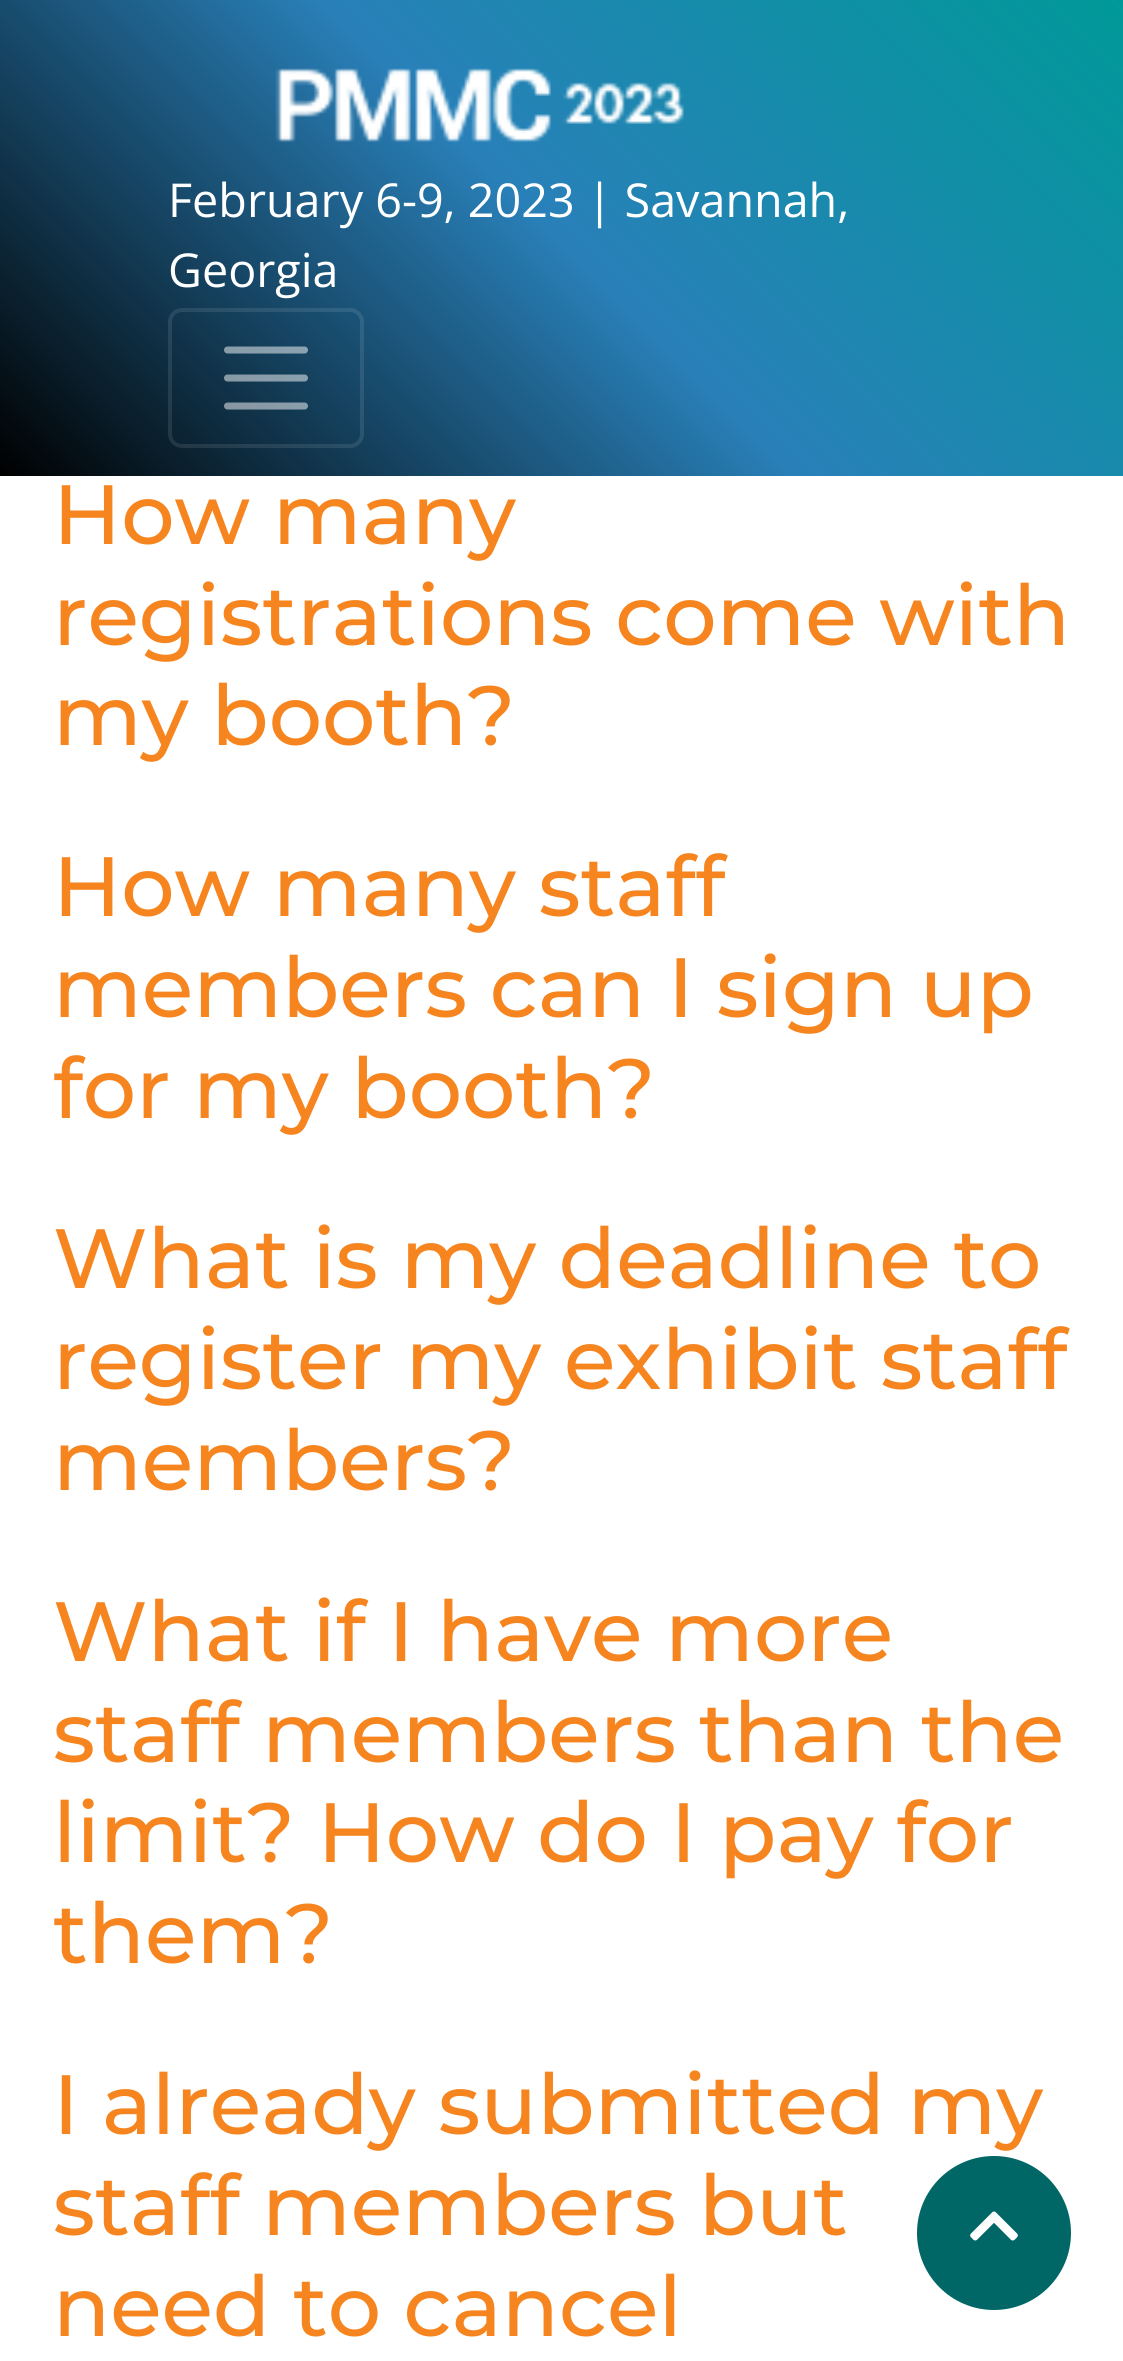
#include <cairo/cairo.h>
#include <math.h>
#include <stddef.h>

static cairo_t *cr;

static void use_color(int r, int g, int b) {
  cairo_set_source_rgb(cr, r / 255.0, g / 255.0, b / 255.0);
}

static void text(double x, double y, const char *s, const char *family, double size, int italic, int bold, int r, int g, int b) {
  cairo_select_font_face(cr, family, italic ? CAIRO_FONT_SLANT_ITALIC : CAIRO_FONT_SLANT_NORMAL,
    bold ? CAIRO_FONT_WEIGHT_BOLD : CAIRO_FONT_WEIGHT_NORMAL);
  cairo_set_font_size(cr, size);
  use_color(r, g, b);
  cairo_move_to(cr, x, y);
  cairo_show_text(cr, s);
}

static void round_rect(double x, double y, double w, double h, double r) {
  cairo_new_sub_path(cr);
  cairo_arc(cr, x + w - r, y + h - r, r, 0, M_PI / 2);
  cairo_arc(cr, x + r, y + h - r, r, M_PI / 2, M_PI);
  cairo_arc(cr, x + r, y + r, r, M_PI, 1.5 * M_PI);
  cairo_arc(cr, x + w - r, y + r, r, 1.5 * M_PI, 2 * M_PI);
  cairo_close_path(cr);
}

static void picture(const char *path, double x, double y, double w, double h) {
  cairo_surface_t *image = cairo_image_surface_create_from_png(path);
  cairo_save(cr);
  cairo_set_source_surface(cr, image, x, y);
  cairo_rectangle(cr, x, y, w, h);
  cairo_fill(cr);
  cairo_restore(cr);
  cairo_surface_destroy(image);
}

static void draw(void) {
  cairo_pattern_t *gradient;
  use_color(255, 255, 255);
  cairo_paint(cr);
  gradient = cairo_pattern_create_linear(162, 638, 962, -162);
  cairo_pattern_add_color_stop_rgba(gradient, 0, 0, 0, 0, 1);
  cairo_pattern_add_color_stop_rgba(gradient, 0.5, 0.161, 0.502, 0.725, 1);
  cairo_pattern_add_color_stop_rgba(gradient, 1, 0, 0.6, 0.6, 1);
  cairo_set_source(cr, gradient);
  cairo_pattern_destroy(gradient);
  cairo_rectangle(cr, 0, 0, 1123, 476);
  cairo_fill(cr);
  picture("img_01.png", 275, 68, 409, 74);
  round_rect(170, 310, 192, 136, 12);
  cairo_set_source_rgba(cr, 1, 1, 1, 0.1);
  cairo_set_line_width(cr, 4);
  cairo_stroke(cr);
  cairo_new_path(cr);
  cairo_move_to(cr, 227.5, 350);
  cairo_line_to(cr, 304.5, 350);
  cairo_move_to(cr, 227.5, 378);
  cairo_line_to(cr, 304.5, 378);
  cairo_move_to(cr, 227.5, 406);
  cairo_line_to(cr, 304.5, 406);
  cairo_set_source_rgba(cr, 1, 1, 1, 0.5);
  cairo_set_line_width(cr, 7);
  cairo_set_line_cap(cr, CAIRO_LINE_CAP_ROUND);
  cairo_stroke(cr);
  use_color(0, 102, 102);
  cairo_arc(cr, 994, 2233, 77, 0, 2 * M_PI);
  cairo_fill(cr);
  picture("img_02.png", 970, 2211, 48, 30);
  text(168, 217, "February 6-9, 2023 | Savannah,", "Open Sans", 46.7, 0, 0, 255, 255, 255);
  text(168, 287, "Georgia", "Open Sans", 46.7, 0, 0, 255, 255, 255);
  text(53, 544, "How many", "Montserrat Medium", 84, 0, 0, 246, 133, 31);
  text(53, 645, "registrations come with", "Montserrat Medium", 84, 0, 0, 246, 133, 31);
  text(53, 745, "my booth?", "Montserrat Medium", 84, 0, 0, 246, 133, 31);
  text(53, 916, "How many staff", "Montserrat Medium", 84, 0, 0, 246, 133, 31);
  text(53, 1017, "members can I sign up", "Montserrat Medium", 84, 0, 0, 246, 133, 31);
  text(53, 1118, "for my booth?", "Montserrat Medium", 84, 0, 0, 246, 133, 31);
  text(53, 1288, "What is my deadline to", "Montserrat Medium", 84, 0, 0, 246, 133, 31);
  text(53, 1389, "register my exhibit staff", "Montserrat Medium", 84, 0, 0, 246, 133, 31);
  text(53, 1490, "members?", "Montserrat Medium", 84, 0, 0, 246, 133, 31);
  text(53, 1661, "What if I have more", "Montserrat Medium", 84, 0, 0, 246, 133, 31);
  text(53, 1762, "staff members than the", "Montserrat Medium", 84, 0, 0, 246, 133, 31);
  text(53, 1862, "limit? How do I pay for", "Montserrat Medium", 84, 0, 0, 246, 133, 31);
  text(53, 1963, "them?", "Montserrat Medium", 84, 0, 0, 246, 133, 31);
  text(53, 2134, "I already submitted my", "Montserrat Medium", 84, 0, 0, 246, 133, 31);
  text(53, 2235, "staff members but", "Montserrat Medium", 84, 0, 0, 246, 133, 31);
  text(53, 2336, "need to cancel", "Montserrat Medium", 84, 0, 0, 246, 133, 31);
}

int main(void) {
  cairo_surface_t *surface = cairo_image_surface_create(CAIRO_FORMAT_RGB24, 1123, 2361);
  cr = cairo_create(surface);
  cairo_font_options_t *options = cairo_font_options_create();
  cairo_font_options_set_hint_metrics(options, CAIRO_HINT_METRICS_OFF);
  cairo_font_options_set_hint_style(options, CAIRO_HINT_STYLE_NONE);
  cairo_set_font_options(cr, options);
  cairo_set_miter_limit(cr, 4);
  draw();
  cairo_surface_write_to_png(surface, "out.png");
  cairo_font_options_destroy(options);
  cairo_destroy(cr);
  cairo_surface_destroy(surface);
  return 0;
}
